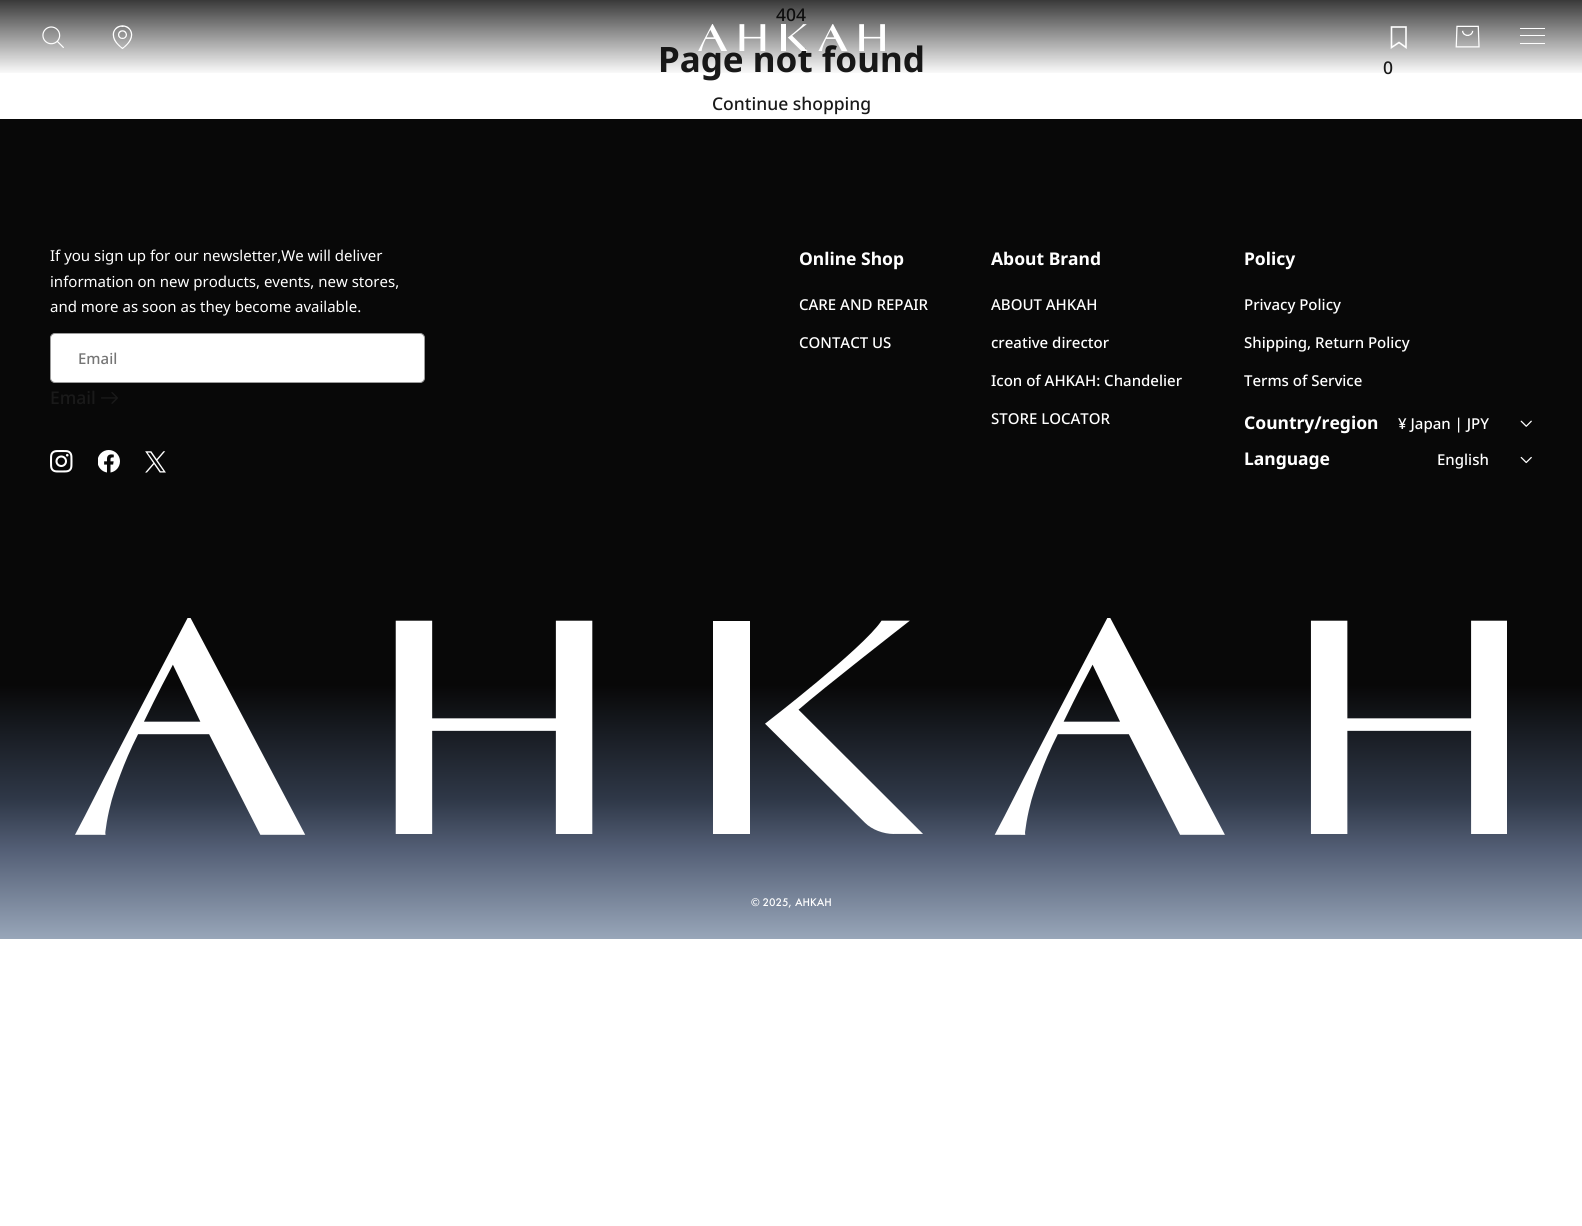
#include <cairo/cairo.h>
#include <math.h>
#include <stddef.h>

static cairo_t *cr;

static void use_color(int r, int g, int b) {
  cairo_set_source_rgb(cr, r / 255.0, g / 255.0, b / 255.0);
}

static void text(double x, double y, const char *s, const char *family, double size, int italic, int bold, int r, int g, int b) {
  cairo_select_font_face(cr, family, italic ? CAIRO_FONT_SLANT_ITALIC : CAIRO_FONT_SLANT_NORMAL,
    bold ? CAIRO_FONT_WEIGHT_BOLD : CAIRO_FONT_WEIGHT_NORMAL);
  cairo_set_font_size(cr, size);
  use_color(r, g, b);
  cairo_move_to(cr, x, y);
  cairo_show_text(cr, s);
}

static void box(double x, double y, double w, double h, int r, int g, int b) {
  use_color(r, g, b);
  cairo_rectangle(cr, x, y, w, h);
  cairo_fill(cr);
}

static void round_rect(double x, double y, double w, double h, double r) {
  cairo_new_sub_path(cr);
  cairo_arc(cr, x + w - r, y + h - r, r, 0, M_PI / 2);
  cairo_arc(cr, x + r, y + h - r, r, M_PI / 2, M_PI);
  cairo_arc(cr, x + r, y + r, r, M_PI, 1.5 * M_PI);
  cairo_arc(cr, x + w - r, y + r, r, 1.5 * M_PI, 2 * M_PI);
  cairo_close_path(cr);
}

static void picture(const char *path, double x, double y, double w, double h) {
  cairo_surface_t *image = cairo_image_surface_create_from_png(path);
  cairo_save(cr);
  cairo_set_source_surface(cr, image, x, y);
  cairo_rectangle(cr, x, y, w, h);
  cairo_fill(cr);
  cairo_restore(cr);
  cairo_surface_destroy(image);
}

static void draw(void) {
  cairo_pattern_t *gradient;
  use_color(255, 255, 255);
  cairo_paint(cr);
  gradient = cairo_pattern_create_linear(791, 119, 791, 939);
  cairo_pattern_add_color_stop_rgba(gradient, 0.69, 0.031, 0.031, 0.031, 1);
  cairo_pattern_add_color_stop_rgba(gradient, 0.83, 0.184, 0.22, 0.282, 1);
  cairo_pattern_add_color_stop_rgba(gradient, 0.89, 0.325, 0.369, 0.459, 1);
  cairo_pattern_add_color_stop_rgba(gradient, 1, 0.596, 0.651, 0.725, 1);
  cairo_set_source(cr, gradient);
  cairo_pattern_destroy(gradient);
  cairo_rectangle(cr, 0, 119, 1582, 820);
  cairo_fill(cr);
  use_color(255, 255, 255);
  round_rect(50.5, 333.5, 374, 49, 4.5);
  cairo_fill_preserve(cr);
  use_color(156, 156, 156);
  cairo_set_line_width(cr, 1);
  cairo_stroke(cr);
  picture("img_05.png", 101, 392, 17, 12);
  picture("img_06.png", 50, 450, 23, 23);
  picture("img_07.png", 98, 450, 22, 23);
  picture("img_08.png", 145, 451, 21, 22);
  picture("img_09.png", 1520, 420, 12, 7);
  picture("img_10.png", 1520, 456, 12, 8);
  picture("img_11.png", 75, 618, 1432, 217);
  text(776, 21, "404", "Noto Sans Medium", 17.5, 0, 0, 26, 26, 26);
  text(658, 72, "Page not found", "Noto Sans", 35, 0, 1, 26, 26, 26);
  text(712, 110, "Continue shopping", "Noto Sans Medium", 17.5, 0, 0, 26, 26, 26);
  gradient = cairo_pattern_create_linear(791, 0, 791, 75);
  cairo_pattern_add_color_stop_rgba(gradient, 0, 0.031, 0.031, 0.031, 0.8);
  cairo_pattern_add_color_stop_rgba(gradient, 1, 0.031, 0.031, 0.031, 0);
  cairo_set_source(cr, gradient);
  cairo_pattern_destroy(gradient);
  cairo_rectangle(cr, 0, 0, 1582, 73);
  cairo_fill(cr);
  picture("img_01.png", 698, 24, 187, 27);
  box(1520, 28, 25, 1, 255, 255, 255);
  box(1520, 35, 25, 1, 255, 255, 255);
  box(1520, 43, 25, 1, 255, 255, 255);
  picture("img_02.png", 42, 26, 22, 22);
  picture("img_03.png", 112, 25, 21, 24);
  picture("img_04.png", 1455, 25, 25, 23);
  cairo_new_path(cr);
  cairo_move_to(cr, 1399, 42.5);
  cairo_line_to(cr, 1391.5, 47.5);
  cairo_line_to(cr, 1391.5, 27);
  cairo_line_to(cr, 1406, 27);
  cairo_line_to(cr, 1406, 47.5);
  cairo_close_path(cr);
  cairo_set_line_width(cr, 1.6);
  cairo_set_line_cap(cr, CAIRO_LINE_CAP_ROUND);
  cairo_stroke(cr);
  text(1383, 74, "0", "Noto Sans Medium", 17.5, 0, 0, 26, 26, 26);
  text(50, 261, "If you sign up for our newsletter,We will deliver", "Noto Sans", 15, 0, 0, 255, 255, 255);
  text(50, 287, "information on new products, events, new stores,", "Noto Sans", 15, 0, 0, 255, 255, 255);
  text(50, 312, "and more as soon as they become available.", "Noto Sans", 15, 0, 0, 255, 255, 255);
  text(78, 364, "Email", "Noto Sans Medium", 15, 0, 0, 117, 117, 117);
  text(50, 404, "Email", "Noto Sans Medium", 17.5, 0, 0, 26, 26, 26);
  text(799, 265, "Online Shop", "Noto Sans", 17.5, 0, 1, 255, 255, 255);
  text(799, 310, "CARE AND REPAIR", "Noto Sans Medium", 15, 0, 0, 255, 255, 255);
  text(799, 348, "CONTACT US", "Noto Sans Medium", 15, 0, 0, 255, 255, 255);
  text(991, 265, "About Brand", "Noto Sans", 17.5, 0, 1, 255, 255, 255);
  text(991, 310, "ABOUT AHKAH", "Noto Sans Medium", 15, 0, 0, 255, 255, 255);
  text(991, 348, "creative director", "Noto Sans Medium", 15, 0, 0, 255, 255, 255);
  text(991, 386, "Icon of AHKAH: Chandelier", "Noto Sans Medium", 15, 0, 0, 255, 255, 255);
  text(991, 424, "STORE LOCATOR", "Noto Sans Medium", 15, 0, 0, 255, 255, 255);
  text(1244, 265, "Policy", "Noto Sans", 17.5, 0, 1, 255, 255, 255);
  text(1244, 310, "Privacy Policy", "Noto Sans Medium", 15, 0, 0, 255, 255, 255);
  text(1244, 348, "Shipping, Return Policy", "Noto Sans Medium", 15, 0, 0, 255, 255, 255);
  text(1244, 386, "Terms of Service", "Noto Sans Medium", 15, 0, 0, 255, 255, 255);
  text(1244, 429, "Country/region", "Noto Sans", 17.5, 0, 1, 255, 255, 255);
  text(1398, 429, "¥ Japan | JPY", "Noto Sans Medium", 15, 0, 0, 255, 255, 255);
  text(1244, 465, "Language", "Noto Sans", 17.5, 0, 1, 255, 255, 255);
  text(1437, 465, "English", "Noto Sans Medium", 15, 0, 0, 255, 255, 255);
  text(751, 906, "© 2025, AHKAH", "Futura PT Medium", 11.5, 0, 0, 255, 255, 255);
}

int main(void) {
  cairo_surface_t *surface = cairo_image_surface_create(CAIRO_FORMAT_RGB24, 1582, 1226);
  cr = cairo_create(surface);
  cairo_font_options_t *options = cairo_font_options_create();
  cairo_font_options_set_hint_metrics(options, CAIRO_HINT_METRICS_OFF);
  cairo_font_options_set_hint_style(options, CAIRO_HINT_STYLE_NONE);
  cairo_set_font_options(cr, options);
  cairo_set_miter_limit(cr, 4);
  draw();
  cairo_surface_write_to_png(surface, "out.png");
  cairo_font_options_destroy(options);
  cairo_destroy(cr);
  cairo_surface_destroy(surface);
  return 0;
}
